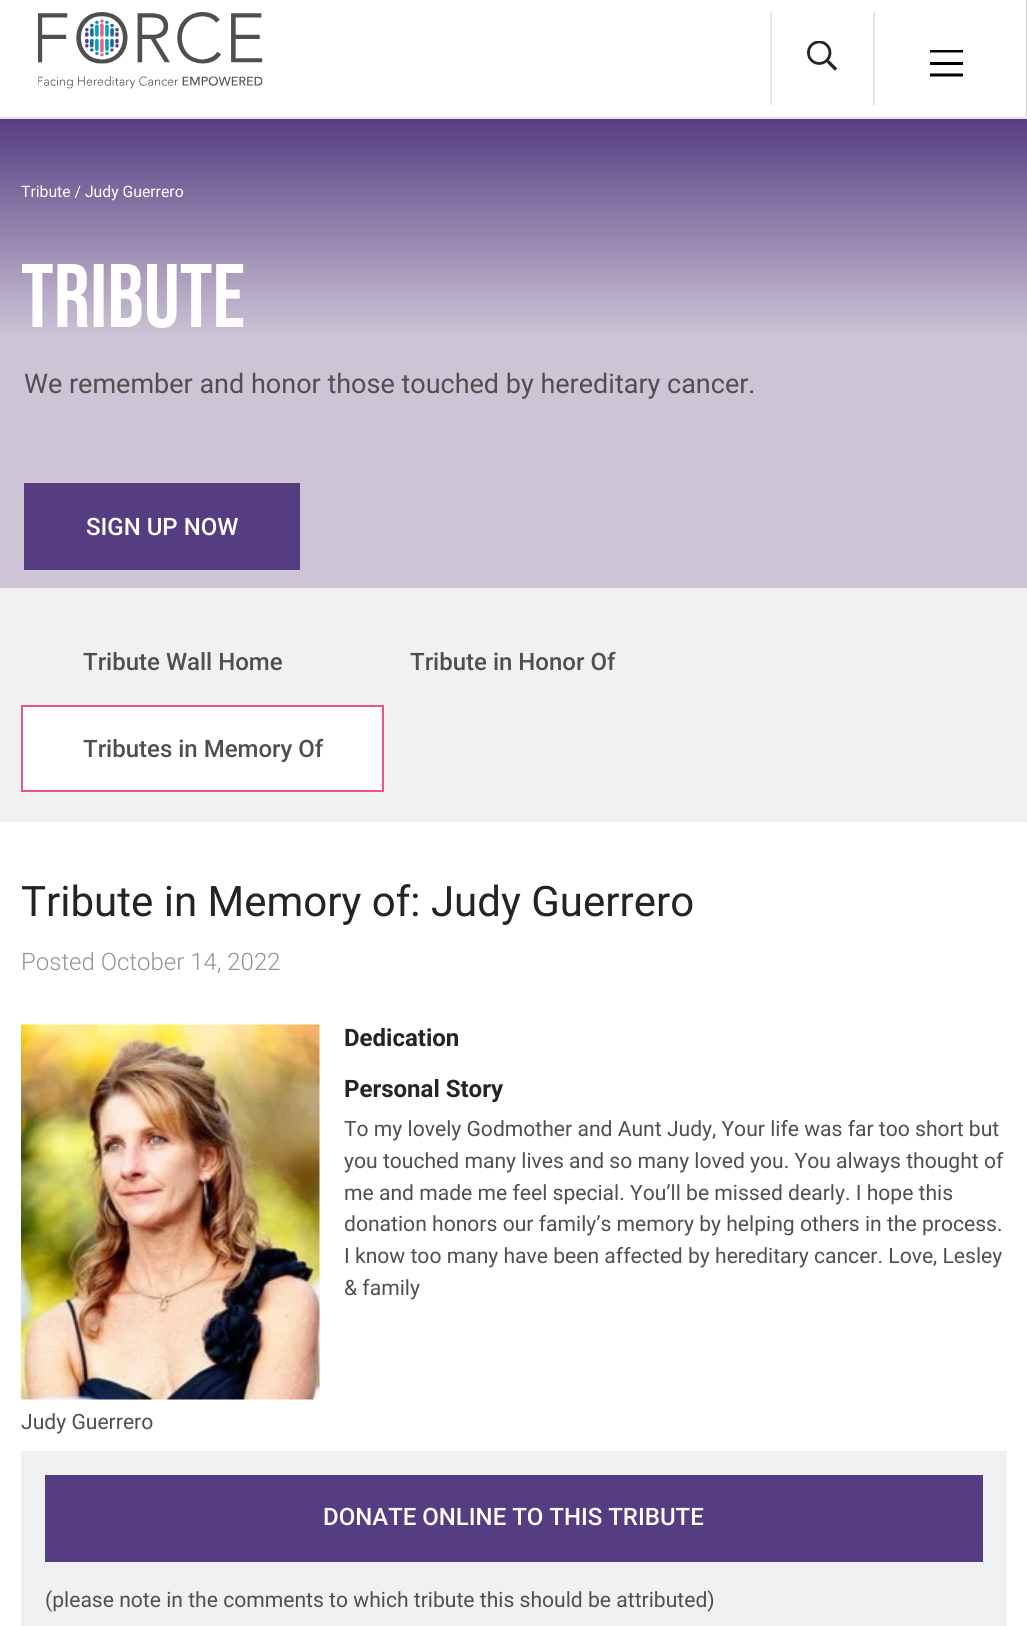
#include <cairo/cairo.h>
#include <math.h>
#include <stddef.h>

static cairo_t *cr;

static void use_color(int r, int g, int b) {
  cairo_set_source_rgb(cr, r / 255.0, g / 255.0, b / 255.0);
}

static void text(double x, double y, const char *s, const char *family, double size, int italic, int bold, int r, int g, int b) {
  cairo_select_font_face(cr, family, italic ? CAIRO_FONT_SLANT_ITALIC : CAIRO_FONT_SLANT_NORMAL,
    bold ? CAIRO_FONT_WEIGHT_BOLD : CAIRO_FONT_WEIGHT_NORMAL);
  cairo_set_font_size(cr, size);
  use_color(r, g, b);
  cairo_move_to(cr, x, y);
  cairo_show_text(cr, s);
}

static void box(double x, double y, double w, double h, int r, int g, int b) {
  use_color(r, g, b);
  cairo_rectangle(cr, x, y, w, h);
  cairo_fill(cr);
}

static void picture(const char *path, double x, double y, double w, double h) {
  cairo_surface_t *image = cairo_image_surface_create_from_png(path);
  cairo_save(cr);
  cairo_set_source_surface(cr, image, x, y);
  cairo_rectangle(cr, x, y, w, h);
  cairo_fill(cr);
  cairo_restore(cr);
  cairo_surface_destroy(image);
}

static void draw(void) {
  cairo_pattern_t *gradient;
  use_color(255, 255, 255);
  cairo_paint(cr);
  box(1026, 0, 1, 117, 211, 211, 211);
  picture("img_01.png", 38, 12, 225, 77);
  box(873, 12, 2, 93, 229, 229, 229);
  box(770, 12, 2, 93, 229, 229, 229);
  picture("img_02.png", 807, 41, 30, 30);
  cairo_save(cr);
  cairo_rectangle(cr, 930, 50, 35, 27);
  cairo_clip(cr);
  cairo_new_path(cr);
  cairo_move_to(cr, 963, 51);
  cairo_line_to(cr, 930, 51);
  use_color(0, 0, 0);
  cairo_set_line_width(cr, 3);
  cairo_stroke(cr);
  cairo_restore(cr);
  box(930, 62, 33, 3, 0, 0, 0);
  cairo_new_path(cr);
  cairo_move_to(cr, 963, 75);
  cairo_line_to(cr, 930, 75);
  cairo_set_line_width(cr, 3);
  cairo_stroke(cr);
  box(0, 117, 1027, 2, 229, 229, 229);
  gradient = cairo_pattern_create_linear(514, 118, 514, 588);
  cairo_pattern_add_color_stop_rgba(gradient, 0, 0.337, 0.239, 0.51, 1);
  cairo_pattern_add_color_stop_rgba(gradient, 0.47, 0.804, 0.773, 0.839, 1);
  cairo_set_source(cr, gradient);
  cairo_pattern_destroy(gradient);
  cairo_rectangle(cr, 0, 119, 1027, 469);
  cairo_fill(cr);
  box(24, 483, 276, 87, 86, 61, 130);
  box(0, 588, 1027, 234, 240, 241, 242);
  use_color(255, 255, 255);
  cairo_rectangle(cr, 22, 706, 361, 85);
  cairo_fill_preserve(cr);
  use_color(235, 84, 140);
  cairo_set_line_width(cr, 2);
  cairo_stroke(cr);
  picture("img_03.png", 21, 1024, 299, 376);
  box(21, 1451, 986, 175, 240, 241, 242);
  box(45, 1475, 938, 87, 86, 61, 130);
  text(21, 197, "Tribute / Judy Guerrero", "Roboto", 15.75, 0, 0, 255, 255, 255);
  text(21, 327, "Tribute", "Bebas Neue", 90, 0, 0, 255, 255, 255);
  text(24, 393, "We remember and honor those touched by hereditary cancer.", "Roboto", 27, 0, 0, 79, 79, 79);
  text(86, 535, "SIGN UP NOW", "Roboto Medium", 24, 0, 0, 255, 255, 255);
  text(83, 670, "Tribute Wall Home", "Roboto Medium", 24, 0, 0, 79, 79, 79);
  text(410, 670, "Tribute in Honor Of", "Roboto Medium", 24, 0, 0, 79, 79, 79);
  text(83, 757, "Tributes in Memory Of", "Roboto Medium", 24, 0, 0, 79, 79, 79);
  text(21, 916, "Tribute in Memory of: Judy Guerrero", "Roboto", 42, 0, 0, 36, 36, 36);
  text(21, 970, "Posted October 14, 2022", "Roboto Light", 24, 0, 0, 147, 147, 147);
  text(344, 1046, "Dedication", "Roboto", 24, 0, 1, 36, 36, 36);
  text(344, 1097, "Personal Story", "Roboto", 24, 0, 1, 36, 36, 36);
  text(344, 1136, "To my lovely Godmother and Aunt Judy, Your life was far too short but", "Roboto", 21.1, 0, 0, 79, 79, 79);
  text(344, 1168, "you touched many lives and so many loved you. You always thought of", "Roboto", 21.1, 0, 0, 79, 79, 79);
  text(344, 1200, "me and made me feel special. You’ll be missed dearly. I hope this", "Roboto", 21.1, 0, 0, 79, 79, 79);
  text(344, 1231, "donation honors our family’s memory by helping others in the process.", "Roboto", 21.1, 0, 0, 79, 79, 79);
  text(344, 1263, "I know too many have been affected by hereditary cancer. Love, Lesley", "Roboto", 21.1, 0, 0, 79, 79, 79);
  text(344, 1295, "& family", "Roboto", 21.1, 0, 0, 79, 79, 79);
  text(21, 1429, "Judy Guerrero", "Roboto", 21.1, 0, 0, 79, 79, 79);
  text(323, 1525, "DONATE ONLINE TO THIS TRIBUTE", "Roboto Medium", 24, 0, 0, 255, 255, 255);
  text(45, 1607, "(please note in the comments to which tribute this should be attributed)", "Roboto", 21.1, 0, 0, 79, 79, 79);
}

int main(void) {
  cairo_surface_t *surface = cairo_image_surface_create(CAIRO_FORMAT_RGB24, 1027, 1626);
  cr = cairo_create(surface);
  cairo_font_options_t *options = cairo_font_options_create();
  cairo_font_options_set_hint_metrics(options, CAIRO_HINT_METRICS_OFF);
  cairo_font_options_set_hint_style(options, CAIRO_HINT_STYLE_NONE);
  cairo_set_font_options(cr, options);
  cairo_set_miter_limit(cr, 4);
  draw();
  cairo_surface_write_to_png(surface, "out.png");
  cairo_font_options_destroy(options);
  cairo_destroy(cr);
  cairo_surface_destroy(surface);
  return 0;
}
